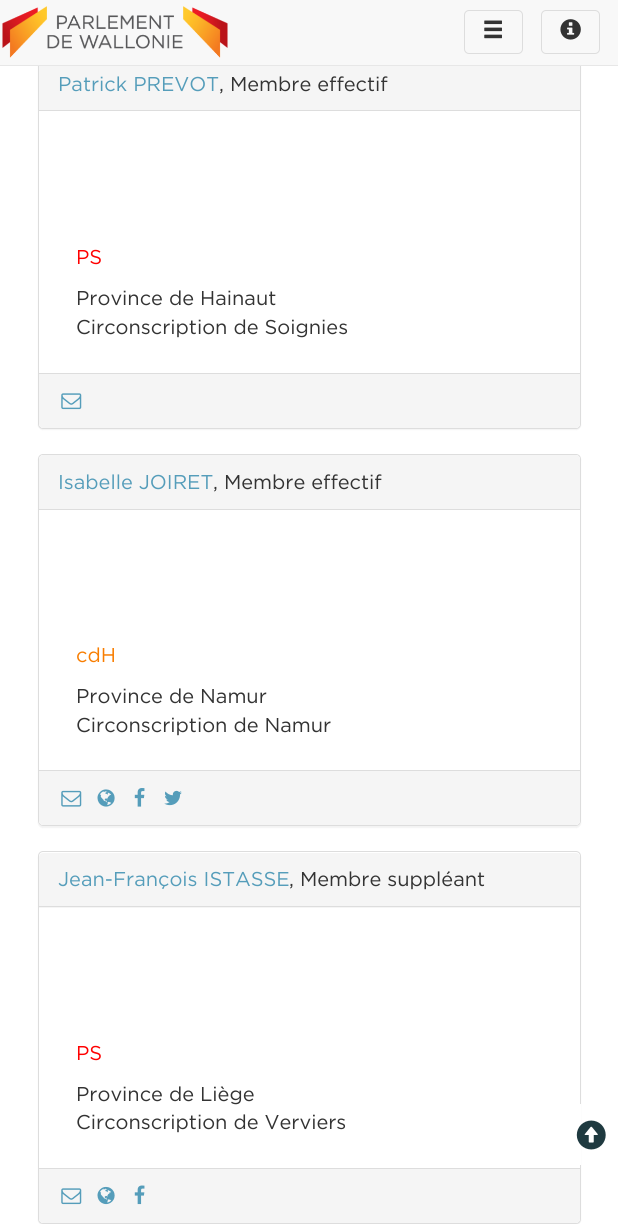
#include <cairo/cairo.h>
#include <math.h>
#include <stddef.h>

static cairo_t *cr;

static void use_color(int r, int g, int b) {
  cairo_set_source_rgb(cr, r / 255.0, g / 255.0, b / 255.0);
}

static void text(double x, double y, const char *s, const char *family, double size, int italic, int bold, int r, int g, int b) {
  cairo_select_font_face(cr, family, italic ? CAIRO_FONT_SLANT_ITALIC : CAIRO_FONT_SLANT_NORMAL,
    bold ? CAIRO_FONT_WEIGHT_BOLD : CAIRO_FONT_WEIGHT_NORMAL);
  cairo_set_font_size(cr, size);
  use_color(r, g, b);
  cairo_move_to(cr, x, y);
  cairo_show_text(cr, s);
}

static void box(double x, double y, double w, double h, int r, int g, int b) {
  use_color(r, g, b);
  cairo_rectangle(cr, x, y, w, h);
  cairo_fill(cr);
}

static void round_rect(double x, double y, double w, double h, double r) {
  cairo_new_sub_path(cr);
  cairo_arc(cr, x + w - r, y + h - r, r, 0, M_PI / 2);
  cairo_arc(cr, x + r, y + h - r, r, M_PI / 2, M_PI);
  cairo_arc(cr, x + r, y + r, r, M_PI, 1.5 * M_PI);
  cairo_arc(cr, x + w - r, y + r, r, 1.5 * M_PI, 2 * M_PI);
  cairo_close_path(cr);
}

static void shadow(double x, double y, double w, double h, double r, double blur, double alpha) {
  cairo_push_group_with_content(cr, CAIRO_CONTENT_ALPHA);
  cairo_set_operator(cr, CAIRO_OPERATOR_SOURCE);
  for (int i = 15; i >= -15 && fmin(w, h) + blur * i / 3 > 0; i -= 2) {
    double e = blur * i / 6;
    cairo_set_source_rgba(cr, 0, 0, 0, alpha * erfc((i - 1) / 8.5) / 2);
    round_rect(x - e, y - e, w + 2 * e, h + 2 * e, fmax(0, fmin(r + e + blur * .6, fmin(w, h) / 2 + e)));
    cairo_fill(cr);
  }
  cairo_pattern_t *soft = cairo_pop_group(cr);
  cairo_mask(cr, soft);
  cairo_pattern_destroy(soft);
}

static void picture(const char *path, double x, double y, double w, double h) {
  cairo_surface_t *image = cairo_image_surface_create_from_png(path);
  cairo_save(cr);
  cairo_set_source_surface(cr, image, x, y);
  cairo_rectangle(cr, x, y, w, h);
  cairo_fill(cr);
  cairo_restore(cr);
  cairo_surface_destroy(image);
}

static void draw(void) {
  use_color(255, 255, 255);
  cairo_paint(cr);
  use_color(0, 0, 0);
  shadow(38, 58, 543, 372, 5, 0.5, 0.05);
  use_color(255, 255, 255);
  round_rect(38.5, 56.5, 542, 372, 4.5);
  cairo_fill_preserve(cr);
  use_color(221, 221, 221);
  cairo_set_line_width(cr, 1);
  cairo_stroke(cr);
  box(0, 0, 618, 65, 248, 248, 248);
  box(0, 65, 618, 1, 231, 231, 231);
  picture("img_01.png", 2, 6, 226, 52);
  round_rect(464.5, 10.5, 58, 43, 4.5);
  use_color(221, 221, 221);
  cairo_stroke(cr);
  picture("img_02.png", 484, 20, 18, 19);
  round_rect(541.5, 10.5, 58, 43, 4.5);
  cairo_stroke(cr);
  picture("img_03.png", 560, 19, 21, 21);
  box(39, 66, 541, 44, 245, 245, 245);
  box(39, 110, 541, 1, 221, 221, 221);
  use_color(245, 245, 245);
  cairo_new_path(cr);
  cairo_move_to(cr, 39, 373);
  cairo_line_to(cr, 580, 373);
  cairo_line_to(cr, 580, 424);
  cairo_curve_to(cr, 580, 426, 578, 428, 576, 428);
  cairo_line_to(cr, 43, 428);
  cairo_curve_to(cr, 41, 428, 39, 426, 39, 424);
  cairo_close_path(cr);
  cairo_fill(cr);
  box(39, 373, 541, 1, 221, 221, 221);
  picture("img_04.png", 61, 393, 21, 17);
  cairo_save(cr);
  cairo_set_fill_rule(cr, CAIRO_FILL_RULE_EVEN_ODD);
  cairo_new_path(cr);
  cairo_move_to(cr, 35, 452);
  cairo_line_to(cr, 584, 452);
  cairo_line_to(cr, 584, 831);
  cairo_line_to(cr, 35, 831);
  cairo_close_path(cr);
  cairo_move_to(cr, 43, 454);
  cairo_line_to(cr, 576, 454);
  cairo_curve_to(cr, 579, 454, 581, 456, 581, 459);
  cairo_line_to(cr, 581, 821);
  cairo_curve_to(cr, 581, 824, 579, 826, 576, 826);
  cairo_line_to(cr, 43, 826);
  cairo_curve_to(cr, 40, 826, 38, 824, 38, 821);
  cairo_line_to(cr, 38, 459);
  cairo_curve_to(cr, 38, 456, 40, 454, 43, 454);
  cairo_close_path(cr);
  cairo_clip(cr);
  use_color(0, 0, 0);
  shadow(38, 455, 543, 373, 5, 0.5, 0.05);
  cairo_restore(cr);
  round_rect(38.5, 454.5, 542, 371, 4.5);
  cairo_stroke(cr);
  use_color(245, 245, 245);
  cairo_new_path(cr);
  cairo_move_to(cr, 43, 455);
  cairo_line_to(cr, 576, 455);
  cairo_curve_to(cr, 578, 455, 580, 457, 580, 459);
  cairo_line_to(cr, 580, 510);
  cairo_line_to(cr, 39, 510);
  cairo_line_to(cr, 39, 459);
  cairo_curve_to(cr, 39, 457, 41, 455, 43, 455);
  cairo_close_path(cr);
  cairo_fill(cr);
  box(39, 509, 541, 1, 221, 221, 221);
  use_color(245, 245, 245);
  cairo_new_path(cr);
  cairo_move_to(cr, 39, 770);
  cairo_line_to(cr, 580, 770);
  cairo_line_to(cr, 580, 821);
  cairo_curve_to(cr, 580, 823, 578, 825, 576, 825);
  cairo_line_to(cr, 43, 825);
  cairo_curve_to(cr, 41, 825, 39, 823, 39, 821);
  cairo_close_path(cr);
  cairo_fill(cr);
  box(39, 770, 541, 1, 221, 221, 221);
  picture("img_05.png", 61, 790, 21, 17);
  picture("img_06.png", 97, 789, 18, 18);
  picture("img_07.png", 134, 788, 11, 19);
  picture("img_08.png", 164, 790, 18, 16);
  use_color(0, 0, 0);
  shadow(38, 853, 543, 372, 5, 0.5, 0.05);
  use_color(255, 255, 255);
  round_rect(38.5, 851.5, 542, 372, 4.5);
  cairo_fill_preserve(cr);
  use_color(221, 221, 221);
  cairo_stroke(cr);
  use_color(245, 245, 245);
  cairo_new_path(cr);
  cairo_move_to(cr, 43, 853);
  cairo_line_to(cr, 576, 853);
  cairo_curve_to(cr, 578, 853, 580, 855, 580, 857);
  cairo_line_to(cr, 580, 908);
  cairo_line_to(cr, 39, 908);
  cairo_line_to(cr, 39, 857);
  cairo_curve_to(cr, 39, 855, 41, 853, 43, 853);
  cairo_close_path(cr);
  cairo_fill(cr);
  box(39, 906, 541, 1, 221, 221, 221);
  use_color(245, 245, 245);
  cairo_new_path(cr);
  cairo_move_to(cr, 39, 1168);
  cairo_line_to(cr, 580, 1168);
  cairo_line_to(cr, 580, 1219);
  cairo_curve_to(cr, 580, 1221, 578, 1223, 576, 1223);
  cairo_line_to(cr, 43, 1223);
  cairo_curve_to(cr, 41, 1223, 39, 1221, 39, 1219);
  cairo_close_path(cr);
  cairo_fill(cr);
  box(39, 1168, 541, 1, 221, 221, 221);
  picture("img_04.png", 61, 1188, 21, 17);
  picture("img_09.png", 97, 1186, 18, 19);
  picture("img_10.png", 134, 1185, 11, 20);
  box(580, 1104, 1, 61, 255, 255, 255);
  picture("img_11.png", 576, 1120, 30, 30);
  text(58, 91, "Patrick PREVOT", "Gotham", 20, 0, 0, 85, 157, 186);
  text(219, 91, ", Membre effectif", "Gotham", 20, 0, 0, 51, 51, 51);
  text(76, 264, "PS", "Gotham", 20, 0, 0, 255, 0, 0);
  text(76, 305, "Province de Hainaut", "Gotham", 20, 0, 0, 51, 51, 51);
  text(76, 334, "Circonscription de Soignies", "Gotham", 20, 0, 0, 51, 51, 51);
  text(58, 489, "Isabelle JOIRET", "Gotham", 20, 0, 0, 85, 157, 186);
  text(213, 489, ", Membre effectif", "Gotham", 20, 0, 0, 51, 51, 51);
  text(76, 662, "cdH", "Gotham", 20, 0, 0, 248, 125, 0);
  text(76, 703, "Province de Namur", "Gotham", 20, 0, 0, 51, 51, 51);
  text(76, 732, "Circonscription de Namur", "Gotham", 20, 0, 0, 51, 51, 51);
  text(58, 886, "Jean-François ISTASSE", "Gotham", 20, 0, 0, 85, 157, 186);
  text(289, 886, ", Membre suppléant", "Gotham", 20, 0, 0, 51, 51, 51);
  text(76, 1060, "PS", "Gotham", 20, 0, 0, 255, 0, 0);
  text(76, 1101, "Province de Liège", "Gotham", 20, 0, 0, 51, 51, 51);
  text(76, 1129, "Circonscription de Verviers", "Gotham", 20, 0, 0, 51, 51, 51);
}

int main(void) {
  cairo_surface_t *surface = cairo_image_surface_create(CAIRO_FORMAT_RGB24, 618, 1224);
  cr = cairo_create(surface);
  cairo_font_options_t *options = cairo_font_options_create();
  cairo_font_options_set_hint_metrics(options, CAIRO_HINT_METRICS_OFF);
  cairo_font_options_set_hint_style(options, CAIRO_HINT_STYLE_NONE);
  cairo_set_font_options(cr, options);
  cairo_set_miter_limit(cr, 4);
  draw();
  cairo_surface_write_to_png(surface, "out.png");
  cairo_font_options_destroy(options);
  cairo_destroy(cr);
  cairo_surface_destroy(surface);
  return 0;
}
